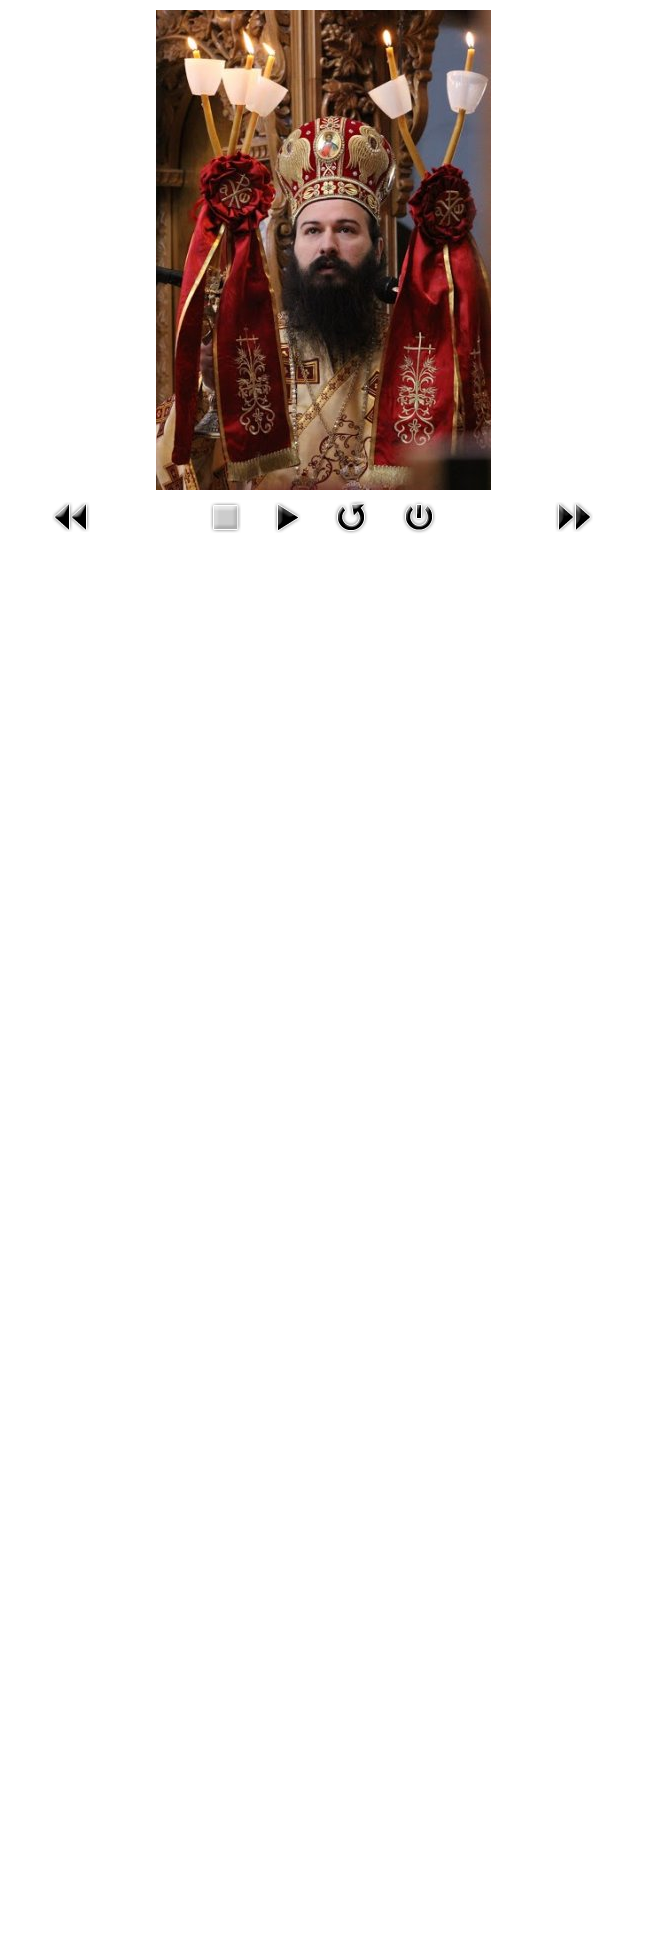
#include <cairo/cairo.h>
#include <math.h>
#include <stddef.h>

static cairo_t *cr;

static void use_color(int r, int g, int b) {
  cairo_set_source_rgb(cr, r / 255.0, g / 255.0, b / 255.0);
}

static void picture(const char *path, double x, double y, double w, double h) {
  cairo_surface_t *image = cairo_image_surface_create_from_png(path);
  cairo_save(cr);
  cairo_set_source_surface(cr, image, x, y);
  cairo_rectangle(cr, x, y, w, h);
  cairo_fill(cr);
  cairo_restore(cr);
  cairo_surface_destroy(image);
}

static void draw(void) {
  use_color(255, 255, 255);
  cairo_paint(cr);
  picture("img_01.png", 156, 10, 335, 480);
  picture("img_02.png", 52, 502, 38, 30);
  picture("img_03.png", 210, 502, 31, 31);
  picture("img_04.png", 274, 502, 27, 31);
  picture("img_05.png", 334, 500, 34, 34);
  picture("img_06.png", 402, 501, 34, 33);
  picture("img_07.png", 555, 502, 38, 30);
}

int main(void) {
  cairo_surface_t *surface = cairo_image_surface_create(CAIRO_FORMAT_RGB24, 646, 1946);
  cr = cairo_create(surface);
  cairo_font_options_t *options = cairo_font_options_create();
  cairo_font_options_set_hint_metrics(options, CAIRO_HINT_METRICS_OFF);
  cairo_font_options_set_hint_style(options, CAIRO_HINT_STYLE_NONE);
  cairo_set_font_options(cr, options);
  cairo_set_miter_limit(cr, 4);
  draw();
  cairo_surface_write_to_png(surface, "out.png");
  cairo_font_options_destroy(options);
  cairo_destroy(cr);
  cairo_surface_destroy(surface);
  return 0;
}
